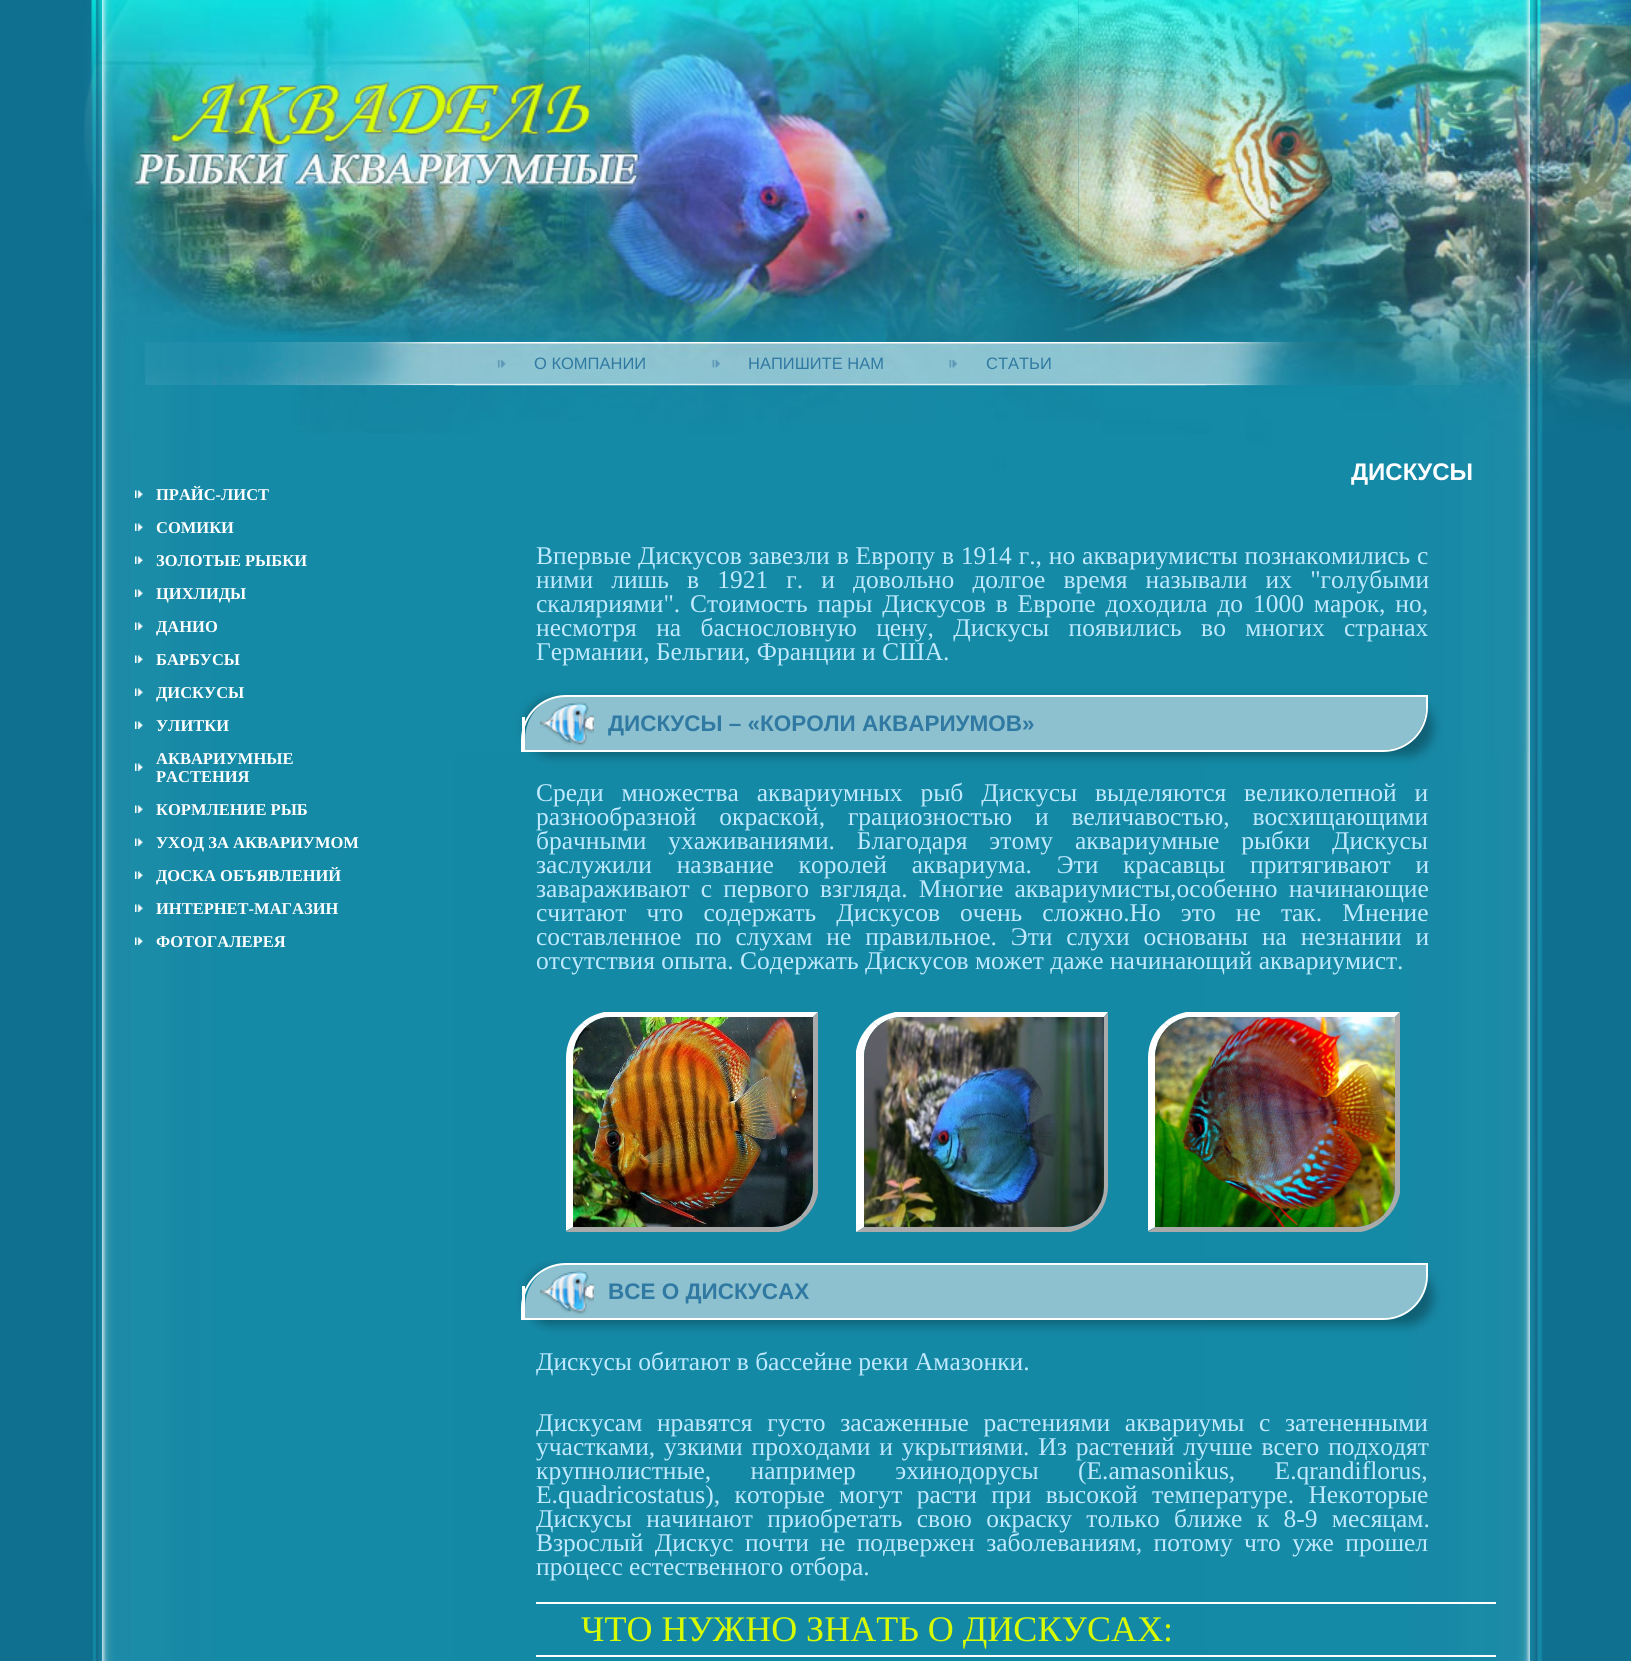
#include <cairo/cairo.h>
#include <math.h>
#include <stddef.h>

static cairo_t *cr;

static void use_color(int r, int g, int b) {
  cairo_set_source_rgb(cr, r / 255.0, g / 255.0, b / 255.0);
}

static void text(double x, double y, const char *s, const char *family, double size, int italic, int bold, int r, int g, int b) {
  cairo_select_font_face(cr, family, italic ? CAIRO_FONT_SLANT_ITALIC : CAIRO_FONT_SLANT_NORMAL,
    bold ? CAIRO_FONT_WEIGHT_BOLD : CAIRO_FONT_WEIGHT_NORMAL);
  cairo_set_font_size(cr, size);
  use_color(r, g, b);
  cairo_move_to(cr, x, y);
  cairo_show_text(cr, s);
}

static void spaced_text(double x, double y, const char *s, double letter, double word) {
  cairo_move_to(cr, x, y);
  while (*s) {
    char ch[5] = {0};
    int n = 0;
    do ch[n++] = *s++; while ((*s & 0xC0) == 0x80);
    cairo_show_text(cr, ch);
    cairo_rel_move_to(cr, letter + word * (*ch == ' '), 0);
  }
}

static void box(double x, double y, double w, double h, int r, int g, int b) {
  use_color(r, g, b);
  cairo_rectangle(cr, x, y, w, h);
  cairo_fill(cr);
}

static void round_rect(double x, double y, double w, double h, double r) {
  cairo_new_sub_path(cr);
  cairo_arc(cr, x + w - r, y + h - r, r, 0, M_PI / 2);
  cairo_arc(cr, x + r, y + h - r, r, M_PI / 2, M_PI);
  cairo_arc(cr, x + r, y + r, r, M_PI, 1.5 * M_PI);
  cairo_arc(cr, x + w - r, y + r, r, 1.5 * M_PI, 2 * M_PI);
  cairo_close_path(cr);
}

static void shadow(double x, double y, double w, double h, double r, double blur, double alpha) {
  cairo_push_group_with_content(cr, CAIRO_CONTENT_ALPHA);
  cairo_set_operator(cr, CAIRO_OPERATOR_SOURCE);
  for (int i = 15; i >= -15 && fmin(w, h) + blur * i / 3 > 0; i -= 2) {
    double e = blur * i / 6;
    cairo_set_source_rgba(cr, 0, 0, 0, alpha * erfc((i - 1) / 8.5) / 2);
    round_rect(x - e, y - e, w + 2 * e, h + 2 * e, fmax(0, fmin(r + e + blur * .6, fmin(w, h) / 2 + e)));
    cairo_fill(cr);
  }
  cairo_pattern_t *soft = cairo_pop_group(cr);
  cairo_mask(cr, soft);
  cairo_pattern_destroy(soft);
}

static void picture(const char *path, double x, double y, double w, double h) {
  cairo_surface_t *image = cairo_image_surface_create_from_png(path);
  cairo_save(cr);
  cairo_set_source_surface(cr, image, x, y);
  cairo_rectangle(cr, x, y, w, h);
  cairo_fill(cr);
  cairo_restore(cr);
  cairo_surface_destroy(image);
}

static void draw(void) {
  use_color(20, 137, 166);
  cairo_paint(cr);
  picture("img_01.png", 0, 0, 102, 750);
  picture("img_02.png", 84, 0, 18, 224);
  picture("img_03.png", 102, 0, 488, 342);
  picture("img_04.png", 589, 0, 490, 342);
  picture("img_05.png", 1078, 0, 452, 342);
  picture("img_06.png", 102, 342, 1428, 44);
  picture("img_07.png", 497, 360, 9, 8);
  picture("img_08.png", 712, 360, 8, 8);
  picture("img_09.png", 949, 360, 8, 8);
  picture("img_10.png", 1206, 385, 324, 1276);
  picture("img_11.png", 102, 385, 353, 1276);
  picture("img_12.png", 102, 385, 353, 1);
  picture("img_13.png", 102, 385, 353, 48);
  picture("img_14.png", 135, 490, 8, 8);
  picture("img_14.png", 135, 523, 8, 8);
  picture("img_14.png", 135, 556, 8, 8);
  picture("img_14.png", 135, 589, 8, 8);
  picture("img_14.png", 135, 622, 8, 8);
  picture("img_14.png", 135, 655, 8, 8);
  picture("img_14.png", 135, 688, 8, 8);
  picture("img_14.png", 135, 721, 8, 8);
  picture("img_14.png", 135, 763, 8, 8);
  picture("img_14.png", 135, 805, 8, 8);
  picture("img_14.png", 135, 838, 8, 8);
  picture("img_14.png", 135, 871, 8, 8);
  picture("img_14.png", 135, 904, 8, 8);
  picture("img_14.png", 135, 937, 8, 8);
  picture("img_15.png", 454, 385, 1076, 368);
  use_color(0, 0, 0);
  shadow(525, 699, 908, 57, 45, 5, 0.3);
  use_color(141, 193, 207);
  cairo_new_path(cr);
  cairo_move_to(cr, 566, 696);
  cairo_line_to(cr, 1426, 696);
  cairo_line_to(cr, 1426, 706);
  cairo_curve_to(cr, 1426, 731, 1407, 750, 1383, 750);
  cairo_line_to(cr, 525, 750);
  cairo_line_to(cr, 525, 740);
  cairo_curve_to(cr, 525, 715, 543, 696, 566, 696);
  cairo_close_path(cr);
  cairo_fill(cr);
  picture("img_16.png", 540, 702, 54, 44);
  cairo_new_path(cr);
  cairo_move_to(cr, 566, 696);
  cairo_line_to(cr, 1427, 696);
  cairo_line_to(cr, 1427, 707);
  cairo_curve_to(cr, 1427, 731.5, 1407.5, 751, 1383, 751);
  cairo_line_to(cr, 522, 751);
  cairo_line_to(cr, 522, 740);
  cairo_curve_to(cr, 522, 715.5, 541.5, 696, 566, 696);
  cairo_close_path(cr);
  use_color(255, 255, 255);
  cairo_stroke(cr);
  box(522, 717, 3, 35, 255, 255, 255);
  cairo_new_path(cr);
  cairo_move_to(cr, 610, 1017);
  cairo_curve_to(cr, 602, 1017, 594, 1020, 587, 1026);
  cairo_line_to(cr, 582, 1023);
  cairo_curve_to(cr, 588, 1017, 596, 1014, 604, 1012);
  cairo_line_to(cr, 818, 1012);
  cairo_line_to(cr, 813, 1017);
  cairo_close_path(cr);
  cairo_fill(cr);
  use_color(170, 170, 170);
  cairo_new_path(cr);
  cairo_move_to(cr, 818, 1012);
  cairo_line_to(cr, 818, 1193);
  cairo_curve_to(cr, 816, 1203, 811, 1212, 804, 1218);
  cairo_line_to(cr, 801, 1215);
  cairo_curve_to(cr, 808, 1208, 813, 1198, 813, 1186);
  cairo_line_to(cr, 813, 1017);
  cairo_close_path(cr);
  cairo_fill(cr);
  cairo_new_path(cr);
  cairo_move_to(cr, 566, 1232);
  cairo_line_to(cr, 573, 1227);
  cairo_line_to(cr, 772, 1227);
  cairo_curve_to(cr, 784, 1227, 794, 1222, 801, 1215);
  cairo_line_to(cr, 804, 1218);
  cairo_curve_to(cr, 798, 1225, 789, 1230, 779, 1232);
  cairo_close_path(cr);
  cairo_fill(cr);
  use_color(255, 255, 255);
  cairo_new_path(cr);
  cairo_move_to(cr, 566, 1231);
  cairo_line_to(cr, 566, 1058);
  cairo_curve_to(cr, 566, 1044, 572, 1031, 582, 1023);
  cairo_line_to(cr, 587, 1026);
  cairo_curve_to(cr, 579, 1033, 573, 1045, 573, 1058);
  cairo_line_to(cr, 573, 1227);
  cairo_close_path(cr);
  cairo_fill(cr);
  picture("img_17.png", 573, 1017, 240, 210);
  cairo_new_path(cr);
  cairo_move_to(cr, 902, 1017);
  cairo_curve_to(cr, 893, 1017, 885, 1020, 878, 1026);
  cairo_line_to(cr, 873, 1022);
  cairo_curve_to(cr, 879, 1017, 887, 1014, 895, 1012);
  cairo_line_to(cr, 1108, 1012);
  cairo_line_to(cr, 1104, 1017);
  cairo_close_path(cr);
  cairo_fill(cr);
  use_color(170, 170, 170);
  cairo_new_path(cr);
  cairo_move_to(cr, 1108, 1013);
  cairo_line_to(cr, 1108, 1186);
  cairo_curve_to(cr, 1108, 1198, 1103, 1210, 1095, 1218);
  cairo_line_to(cr, 1092, 1215);
  cairo_curve_to(cr, 1099, 1208, 1104, 1198, 1104, 1186);
  cairo_line_to(cr, 1104, 1017);
  cairo_close_path(cr);
  cairo_fill(cr);
  cairo_new_path(cr);
  cairo_move_to(cr, 1095, 1218);
  cairo_curve_to(cr, 1089, 1225, 1080, 1230, 1070, 1232);
  cairo_line_to(cr, 856, 1232);
  cairo_line_to(cr, 864, 1227);
  cairo_line_to(cr, 1064, 1227);
  cairo_curve_to(cr, 1075, 1227, 1085, 1223, 1092, 1215);
  cairo_close_path(cr);
  cairo_fill(cr);
  use_color(255, 255, 255);
  cairo_new_path(cr);
  cairo_move_to(cr, 856, 1232);
  cairo_line_to(cr, 856, 1051);
  cairo_curve_to(cr, 858, 1040, 864, 1030, 873, 1022);
  cairo_line_to(cr, 878, 1026);
  cairo_curve_to(cr, 870, 1033, 864, 1045, 864, 1058);
  cairo_line_to(cr, 864, 1227);
  cairo_close_path(cr);
  cairo_fill(cr);
  picture("img_18.png", 864, 1017, 240, 210);
  cairo_new_path(cr);
  cairo_move_to(cr, 1192, 1017);
  cairo_curve_to(cr, 1184, 1017, 1176, 1020, 1169, 1026);
  cairo_line_to(cr, 1164, 1023);
  cairo_curve_to(cr, 1170, 1017, 1178, 1014, 1186, 1012);
  cairo_line_to(cr, 1400, 1012);
  cairo_line_to(cr, 1395, 1017);
  cairo_close_path(cr);
  cairo_fill(cr);
  use_color(170, 170, 170);
  cairo_new_path(cr);
  cairo_move_to(cr, 1400, 1012);
  cairo_line_to(cr, 1400, 1193);
  cairo_curve_to(cr, 1398, 1203, 1393, 1212, 1386, 1218);
  cairo_line_to(cr, 1383, 1215);
  cairo_curve_to(cr, 1390, 1208, 1395, 1198, 1395, 1186);
  cairo_line_to(cr, 1395, 1017);
  cairo_close_path(cr);
  cairo_fill(cr);
  cairo_new_path(cr);
  cairo_move_to(cr, 1148, 1232);
  cairo_line_to(cr, 1155, 1227);
  cairo_line_to(cr, 1354, 1227);
  cairo_curve_to(cr, 1366, 1227, 1376, 1222, 1383, 1215);
  cairo_line_to(cr, 1386, 1218);
  cairo_curve_to(cr, 1380, 1225, 1371, 1230, 1361, 1232);
  cairo_close_path(cr);
  cairo_fill(cr);
  use_color(255, 255, 255);
  cairo_new_path(cr);
  cairo_move_to(cr, 1148, 1231);
  cairo_line_to(cr, 1148, 1058);
  cairo_curve_to(cr, 1148, 1044, 1154, 1031, 1164, 1023);
  cairo_line_to(cr, 1169, 1026);
  cairo_curve_to(cr, 1161, 1033, 1155, 1045, 1155, 1058);
  cairo_line_to(cr, 1155, 1227);
  cairo_close_path(cr);
  cairo_fill(cr);
  picture("img_19.png", 1155, 1017, 240, 210);
  cairo_save(cr);
  cairo_set_fill_rule(cr, CAIRO_FILL_RULE_EVEN_ODD);
  cairo_new_path(cr);
  cairo_move_to(cr, 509, 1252);
  cairo_line_to(cr, 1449, 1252);
  cairo_line_to(cr, 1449, 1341);
  cairo_line_to(cr, 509, 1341);
  cairo_close_path(cr);
  cairo_move_to(cr, 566, 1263);
  cairo_line_to(cr, 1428, 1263);
  cairo_line_to(cr, 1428, 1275);
  cairo_curve_to(cr, 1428, 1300, 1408, 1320, 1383, 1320);
  cairo_line_to(cr, 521, 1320);
  cairo_line_to(cr, 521, 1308);
  cairo_curve_to(cr, 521, 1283, 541, 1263, 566, 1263);
  cairo_close_path(cr);
  cairo_clip(cr);
  use_color(0, 0, 0);
  shadow(525, 1268, 908, 57, 45, 5, 0.3);
  cairo_restore(cr);
  use_color(141, 193, 207);
  cairo_new_path(cr);
  cairo_move_to(cr, 566, 1264);
  cairo_line_to(cr, 1426, 1264);
  cairo_line_to(cr, 1426, 1275);
  cairo_curve_to(cr, 1426, 1299, 1407, 1318, 1383, 1318);
  cairo_line_to(cr, 525, 1318);
  cairo_line_to(cr, 525, 1308);
  cairo_curve_to(cr, 525, 1284, 543, 1264, 566, 1264);
  cairo_close_path(cr);
  cairo_fill(cr);
  picture("img_20.png", 540, 1270, 54, 45);
  cairo_new_path(cr);
  cairo_move_to(cr, 566, 1264);
  cairo_line_to(cr, 1427, 1264);
  cairo_line_to(cr, 1427, 1275);
  cairo_curve_to(cr, 1427, 1299.5, 1407.5, 1319, 1383, 1319);
  cairo_line_to(cr, 522, 1319);
  cairo_line_to(cr, 522, 1308);
  cairo_curve_to(cr, 522, 1283.5, 541.5, 1264, 566, 1264);
  cairo_close_path(cr);
  use_color(255, 255, 255);
  cairo_stroke(cr);
  box(522, 1286, 3, 34, 255, 255, 255);
  box(536, 1602, 960, 2, 255, 255, 255);
  box(536, 1655, 960, 2, 255, 255, 255);
  picture("img_21.png", 1530, 431, 101, 319);
  picture("img_22.png", 1530, 0, 101, 431);
  picture("img_23.png", 0, 750, 102, 911);
  picture("img_24.png", 1530, 750, 101, 911);
  text(534, 369, "О КОМПАНИИ", "Liberation Sans", 16.5, 0, 0, 48, 121, 162);
  text(748, 369, "НАПИШИТЕ НАМ", "Liberation Sans", 16.5, 0, 0, 48, 121, 162);
  text(986, 369, "СТАТЬИ", "Liberation Sans", 16.5, 0, 0, 48, 121, 162);
  text(156, 500, "ПРАЙС-ЛИСТ", "Liberation Serif", 16.5, 0, 1, 255, 255, 255);
  text(156, 533, "СОМИКИ", "Liberation Serif", 16.5, 0, 1, 255, 255, 255);
  text(156, 566, "ЗОЛОТЫЕ РЫБКИ", "Liberation Serif", 16.5, 0, 1, 255, 255, 255);
  text(156, 599, "ЦИХЛИДЫ", "Liberation Serif", 16.5, 0, 1, 255, 255, 255);
  text(156, 632, "ДАНИО", "Liberation Serif", 16.5, 0, 1, 255, 255, 255);
  text(156, 665, "БАРБУСЫ", "Liberation Serif", 16.5, 0, 1, 255, 255, 255);
  text(156, 698, "ДИСКУСЫ", "Liberation Serif", 16.5, 0, 1, 255, 255, 255);
  text(156, 731, "УЛИТКИ", "Liberation Serif", 16.5, 0, 1, 255, 255, 255);
  text(156, 764, "АКВАРИУМНЫЕ", "Liberation Serif", 16.5, 0, 1, 255, 255, 255);
  text(156, 782, "РАСТЕНИЯ", "Liberation Serif", 16.5, 0, 1, 255, 255, 255);
  text(156, 815, "КОРМЛЕНИЕ РЫБ", "Liberation Serif", 16.5, 0, 1, 255, 255, 255);
  text(156, 848, "УХОД ЗА АКВАРИУМОМ", "Liberation Serif", 16.5, 0, 1, 255, 255, 255);
  text(156, 881, "ДОСКА ОБЪЯВЛЕНИЙ", "Liberation Serif", 16.5, 0, 1, 255, 255, 255);
  text(156, 914, "ИНТЕРНЕТ-МАГАЗИН", "Liberation Serif", 16.5, 0, 1, 255, 255, 255);
  text(156, 947, "ФОТОГАЛЕРЕЯ", "Liberation Serif", 16.5, 0, 1, 255, 255, 255);
  text(1351, 480, "ДИСКУСЫ", "Liberation Sans", 24, 0, 1, 255, 255, 255);
  cairo_select_font_face(cr, "Liberation Serif", CAIRO_FONT_SLANT_NORMAL, CAIRO_FONT_WEIGHT_NORMAL);
  cairo_set_font_size(cr, 25.5);
  use_color(191, 233, 255);
  spaced_text(536, 564, "Впервые Дискусов завезли в Европу в 1914 г., но аквариумисты познакомились с", 0, 0.5);
  spaced_text(536, 588, "ними лишь в 1921 г. и довольно долгое время называли их \"голубыми", 0, 11.75);
  spaced_text(536, 612, "скаляриями\". Стоимость пары Дискусов в Европе доходила до 1000 марок, но,", 0, 3.5);
  spaced_text(536, 636, "несмотря на баснословную цену, Дискусы появились во многих странах", 0, 13);
  text(536, 660, "Германии, Бельгии, Франции и США.", "Liberation Serif", 25.5, 0, 0, 191, 233, 255);
  text(608, 731, "ДИСКУСЫ – «КОРОЛИ АКВАРИУМОВ»", "Liberation Sans", 22.5, 0, 1, 48, 121, 162);
  cairo_select_font_face(cr, "Liberation Serif", CAIRO_FONT_SLANT_NORMAL, CAIRO_FONT_WEIGHT_NORMAL);
  cairo_set_font_size(cr, 25.5);
  use_color(191, 233, 255);
  spaced_text(536, 801, "Среди множества аквариумных рыб Дискусы выделяются великолепной и", 0, 11.5);
  spaced_text(536, 825, "разнообразной окраской, грациозностью и величавостью, восхищающими", 0, 16.5);
  spaced_text(536, 849, "брачными ухаживаниями. Благодаря этому аквариумные рыбки Дискусы", 0, 15.5);
  spaced_text(536, 873, "заслужили название королей аквариума. Эти красавцы притягивают и", 0, 18.5);
  spaced_text(536, 897, "завараживают с первого взгляда. Многие аквариумисты,особенно начинающие", 0, 4.75);
  spaced_text(536, 921, "считают что содержать Дискусов очень сложно.Но это не так. Мнение", 0, 13.75);
  spaced_text(536, 945, "составленное по слухам не правильное. Эти слухи основаны на незнании и", 0, 7.5);
  text(536, 969, "отсутствия опыта. Содержать Дискусов может даже начинающий аквариумист.", "Liberation Serif", 25.5, 0, 0, 191, 233, 255);
  text(608, 1299, "ВСЕ О ДИСКУСАХ", "Liberation Sans", 22.5, 0, 1, 48, 121, 162);
  text(536, 1370, "Дискусы обитают в бассейне реки Амазонки.", "Liberation Serif", 25.5, 0, 0, 191, 233, 255);
  spaced_text(536, 1431, "Дискусам нравятся густо засаженные растениями аквариумы с затененными", 0, 8.25);
  spaced_text(536, 1455, "участками, узкими проходами и укрытиями. Из растений лучше всего подходят", 0, 2.5);
  spaced_text(536, 1479, "крупнолистные, например эхинодорусы (E.amasonikus, E.qrandiflorus,", 0, 33);
  spaced_text(536, 1503, "E.quadricostatus), которые могут расти при высокой температуре. Некоторые", 0, 8);
  spaced_text(536, 1527, "Дискусы начинают приобретать свою окраску только ближе к 8-9 месяцам.", 0, 8);
  spaced_text(536, 1551, "Взрослый Дискус почти не подвержен заболеваниям, потому что уже прошел", 0, 5);
  text(536, 1575, "процесс естественного отбора.", "Liberation Serif", 25.5, 0, 0, 191, 233, 255);
  text(581, 1641, "ЧТО НУЖНО ЗНАТЬ О ДИСКУСАХ:", "Liberation Serif", 36, 0, 0, 215, 251, 3);
}

int main(void) {
  cairo_surface_t *surface = cairo_image_surface_create(CAIRO_FORMAT_RGB24, 1631, 1661);
  cr = cairo_create(surface);
  cairo_font_options_t *options = cairo_font_options_create();
  cairo_font_options_set_hint_metrics(options, CAIRO_HINT_METRICS_OFF);
  cairo_font_options_set_hint_style(options, CAIRO_HINT_STYLE_NONE);
  cairo_set_font_options(cr, options);
  cairo_set_miter_limit(cr, 4);
  draw();
  cairo_surface_write_to_png(surface, "out.png");
  cairo_font_options_destroy(options);
  cairo_destroy(cr);
  cairo_surface_destroy(surface);
  return 0;
}
